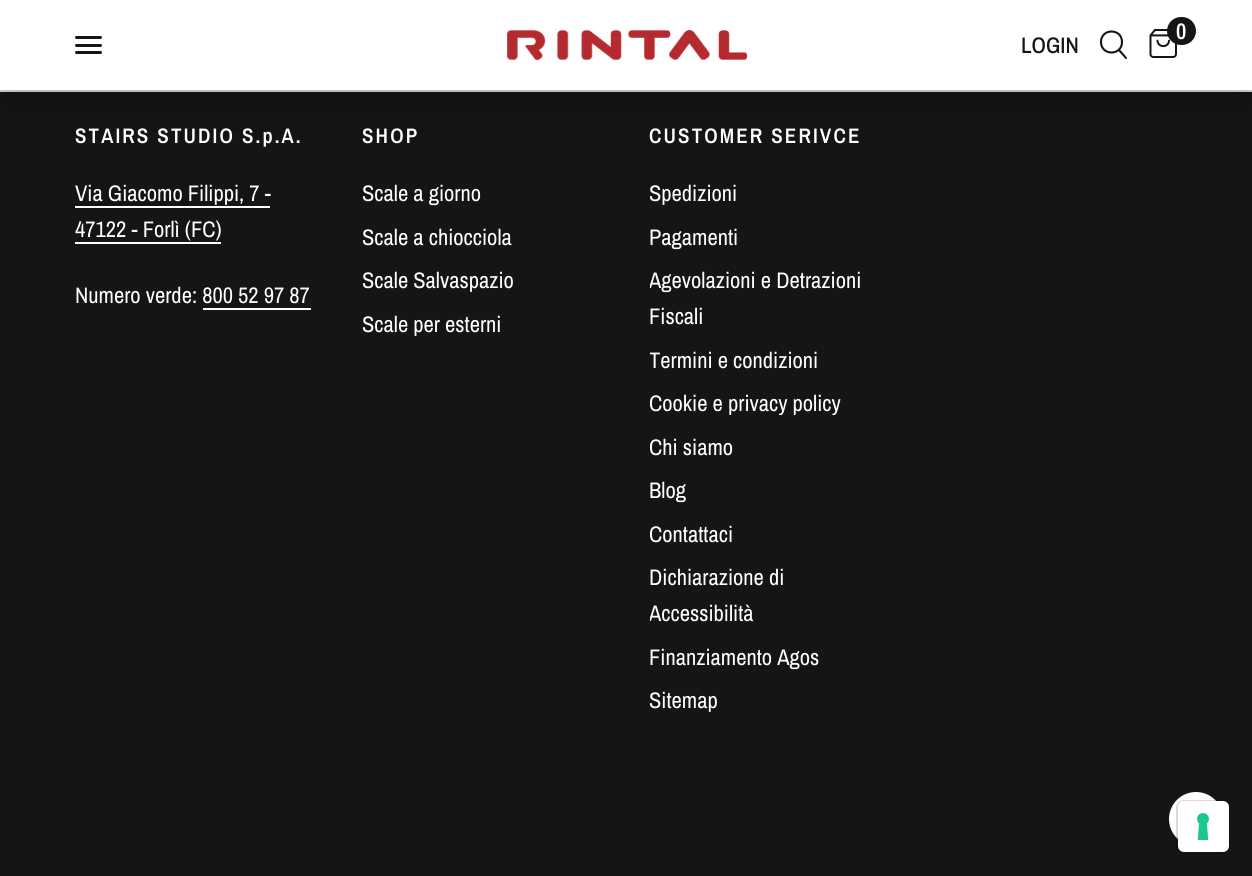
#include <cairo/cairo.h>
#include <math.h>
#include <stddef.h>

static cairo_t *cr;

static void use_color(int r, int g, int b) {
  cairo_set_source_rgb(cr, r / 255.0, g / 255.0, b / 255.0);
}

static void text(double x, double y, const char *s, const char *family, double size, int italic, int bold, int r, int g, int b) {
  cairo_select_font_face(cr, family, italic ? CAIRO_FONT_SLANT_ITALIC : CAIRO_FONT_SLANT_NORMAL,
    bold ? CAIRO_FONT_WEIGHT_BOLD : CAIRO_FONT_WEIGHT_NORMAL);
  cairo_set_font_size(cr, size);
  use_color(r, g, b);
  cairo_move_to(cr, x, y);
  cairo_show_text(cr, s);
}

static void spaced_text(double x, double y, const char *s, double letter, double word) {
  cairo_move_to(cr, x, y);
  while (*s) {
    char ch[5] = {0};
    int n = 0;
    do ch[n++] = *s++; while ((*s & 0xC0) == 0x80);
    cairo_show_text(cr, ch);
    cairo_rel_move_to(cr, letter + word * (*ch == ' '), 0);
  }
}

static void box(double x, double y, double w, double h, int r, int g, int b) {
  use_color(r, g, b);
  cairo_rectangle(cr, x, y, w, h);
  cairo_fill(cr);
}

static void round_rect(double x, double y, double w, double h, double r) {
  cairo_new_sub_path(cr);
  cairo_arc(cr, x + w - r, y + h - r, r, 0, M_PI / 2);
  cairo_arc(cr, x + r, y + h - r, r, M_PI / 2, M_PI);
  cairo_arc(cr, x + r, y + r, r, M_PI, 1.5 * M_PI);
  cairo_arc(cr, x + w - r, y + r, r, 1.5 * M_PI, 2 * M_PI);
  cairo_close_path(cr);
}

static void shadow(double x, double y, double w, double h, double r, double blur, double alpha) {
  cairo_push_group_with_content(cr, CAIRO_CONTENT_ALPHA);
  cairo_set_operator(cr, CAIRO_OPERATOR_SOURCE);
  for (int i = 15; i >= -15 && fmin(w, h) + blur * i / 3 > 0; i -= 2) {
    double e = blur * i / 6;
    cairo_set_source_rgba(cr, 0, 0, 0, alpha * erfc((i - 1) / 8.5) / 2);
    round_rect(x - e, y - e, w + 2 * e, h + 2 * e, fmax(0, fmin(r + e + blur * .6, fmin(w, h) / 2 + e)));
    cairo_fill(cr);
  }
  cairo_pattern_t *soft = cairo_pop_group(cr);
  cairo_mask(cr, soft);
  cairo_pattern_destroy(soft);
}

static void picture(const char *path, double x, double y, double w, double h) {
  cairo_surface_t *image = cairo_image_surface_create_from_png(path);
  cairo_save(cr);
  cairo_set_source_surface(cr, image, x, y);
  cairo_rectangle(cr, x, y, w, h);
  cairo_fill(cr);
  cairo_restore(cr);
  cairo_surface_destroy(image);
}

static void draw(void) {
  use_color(21, 21, 21);
  cairo_paint(cr);
  box(0, 0, 1252, 90, 255, 255, 255);
  box(0, 90, 1252, 2, 226, 226, 226);
  cairo_save(cr);
  cairo_rectangle(cr, 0, 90, 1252, 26);
  cairo_clip(cr);
  use_color(0, 0, 0);
  shadow(0, 8, 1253, 90, 0, 16.5, 0.15);
  cairo_restore(cr);
  cairo_save(cr);
  cairo_rectangle(cr, 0, 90, 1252, 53);
  cairo_clip(cr);
  use_color(0, 0, 0);
  shadow(0, 29, 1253, 90, 0, 28.5, 0.1);
  cairo_restore(cr);
  use_color(21, 21, 21);
  round_rect(75, 36, 27, 3, 1.5);
  cairo_fill(cr);
  round_rect(75, 44, 27, 3, 1.5);
  cairo_fill(cr);
  round_rect(75, 51, 27, 3, 1.5);
  cairo_fill(cr);
  picture("img_01.png", 507, 30, 240, 30);
  cairo_new_path(cr);
  cairo_move_to(cr, 1119, 50);
  cairo_line_to(cr, 1126, 58);
  cairo_move_to(cr, 1122, 42);
  cairo_curve_to(cr, 1122, 56, 1101, 56, 1101, 42);
  cairo_curve_to(cr, 1101, 28, 1122, 28, 1122, 42);
  cairo_close_path(cr);
  cairo_set_line_width(cr, 2.1);
  cairo_set_line_cap(cr, CAIRO_LINE_CAP_ROUND);
  cairo_set_line_join(cr, CAIRO_LINE_JOIN_ROUND);
  cairo_stroke(cr);
  picture("img_02.png", 1149, 29, 28, 29);
  round_rect(1167, 17, 29, 28, 14);
  cairo_fill(cr);
  box(75, 206, 195, 2, 255, 255, 255);
  box(75, 242, 146, 2, 255, 255, 255);
  box(203, 308, 108, 2, 255, 255, 255);
  cairo_arc(cr, 1196, 819, 27, 0, 2 * M_PI);
  cairo_fill(cr);
  round_rect(1177, 801, 52, 52, 7);
  cairo_set_source_rgba(cr, 0, 0, 0, 0.15);
  cairo_set_line_width(cr, 2);
  cairo_set_line_cap(cr, CAIRO_LINE_CAP_BUTT);
  cairo_set_line_join(cr, CAIRO_LINE_JOIN_MITER);
  cairo_stroke(cr);
  use_color(255, 255, 255);
  round_rect(1178, 801, 51, 51, 6);
  cairo_fill(cr);
  picture("img_03.png", 1197, 813, 12, 27);
  text(1021, 53, "LOGIN", "Archivo Narrow Medium", 22.5, 0, 0, 21, 21, 21);
  text(1176, 39, "0", "Archivo Narrow SemiBold", 22.5, 0, 0, 255, 255, 255);
  cairo_set_font_size(cr, 21);
  spaced_text(75, 143, "STAIRS STUDIO S.p.A.", 2.1, 0);
  text(75, 201, "Via Giacomo Filippi, 7 -", "Archivo Narrow", 22.5, 0, 0, 255, 255, 255);
  text(75, 237, "47122 - Forlì (FC)", "Archivo Narrow", 22.5, 0, 0, 255, 255, 255);
  text(75, 303, "Numero verde: 800 52 97 87", "Archivo Narrow", 22.5, 0, 0, 255, 255, 255);
  cairo_select_font_face(cr, "Archivo Narrow SemiBold", CAIRO_FONT_SLANT_NORMAL, CAIRO_FONT_WEIGHT_NORMAL);
  cairo_set_font_size(cr, 21);
  spaced_text(362, 143, "SHOP", 2.1, 0);
  text(362, 201, "Scale a giorno", "Archivo Narrow", 22.5, 0, 0, 255, 255, 255);
  text(362, 245, "Scale a chiocciola", "Archivo Narrow", 22.5, 0, 0, 255, 255, 255);
  text(362, 288, "Scale Salvaspazio", "Archivo Narrow", 22.5, 0, 0, 255, 255, 255);
  text(362, 332, "Scale per esterni", "Archivo Narrow", 22.5, 0, 0, 255, 255, 255);
  cairo_select_font_face(cr, "Archivo Narrow SemiBold", CAIRO_FONT_SLANT_NORMAL, CAIRO_FONT_WEIGHT_NORMAL);
  cairo_set_font_size(cr, 21);
  spaced_text(649, 143, "CUSTOMER SERIVCE", 2.1, 0);
  text(649, 201, "Spedizioni", "Archivo Narrow", 22.5, 0, 0, 255, 255, 255);
  text(649, 245, "Pagamenti", "Archivo Narrow", 22.5, 0, 0, 255, 255, 255);
  cairo_save(cr);
  cairo_rectangle(cr, 650, 176, 241, 543);
  cairo_clip(cr);
  text(649, 288, "Agevolazioni e Detrazioni", "Archivo Narrow", 22.5, 0, 0, 255, 255, 255);
  cairo_restore(cr);
  text(649, 324, "Fiscali", "Archivo Narrow", 22.5, 0, 0, 255, 255, 255);
  cairo_save(cr);
  cairo_rectangle(cr, 650, 176, 241, 543);
  cairo_clip(cr);
  text(649, 368, "Termini e condizioni", "Archivo Narrow", 22.5, 0, 0, 255, 255, 255);
  text(649, 411, "Cookie e privacy policy", "Archivo Narrow", 22.5, 0, 0, 255, 255, 255);
  text(649, 455, "Chi siamo", "Archivo Narrow", 22.5, 0, 0, 255, 255, 255);
  cairo_restore(cr);
  text(649, 498, "Blog", "Archivo Narrow", 22.5, 0, 0, 255, 255, 255);
  cairo_save(cr);
  cairo_rectangle(cr, 650, 176, 241, 543);
  cairo_clip(cr);
  text(649, 542, "Contattaci", "Archivo Narrow", 22.5, 0, 0, 255, 255, 255);
  cairo_restore(cr);
  text(649, 585, "Dichiarazione di", "Archivo Narrow", 22.5, 0, 0, 255, 255, 255);
  cairo_save(cr);
  cairo_rectangle(cr, 650, 176, 241, 543);
  cairo_clip(cr);
  text(649, 621, "Accessibilità", "Archivo Narrow", 22.5, 0, 0, 255, 255, 255);
  cairo_restore(cr);
  text(649, 665, "Finanziamento Agos", "Archivo Narrow", 22.5, 0, 0, 255, 255, 255);
  text(649, 708, "Sitemap", "Archivo Narrow", 22.5, 0, 0, 255, 255, 255);
}

int main(void) {
  cairo_surface_t *surface = cairo_image_surface_create(CAIRO_FORMAT_RGB24, 1252, 876);
  cr = cairo_create(surface);
  cairo_font_options_t *options = cairo_font_options_create();
  cairo_font_options_set_hint_metrics(options, CAIRO_HINT_METRICS_OFF);
  cairo_font_options_set_hint_style(options, CAIRO_HINT_STYLE_NONE);
  cairo_set_font_options(cr, options);
  cairo_set_miter_limit(cr, 4);
  draw();
  cairo_surface_write_to_png(surface, "out.png");
  cairo_font_options_destroy(options);
  cairo_destroy(cr);
  cairo_surface_destroy(surface);
  return 0;
}
